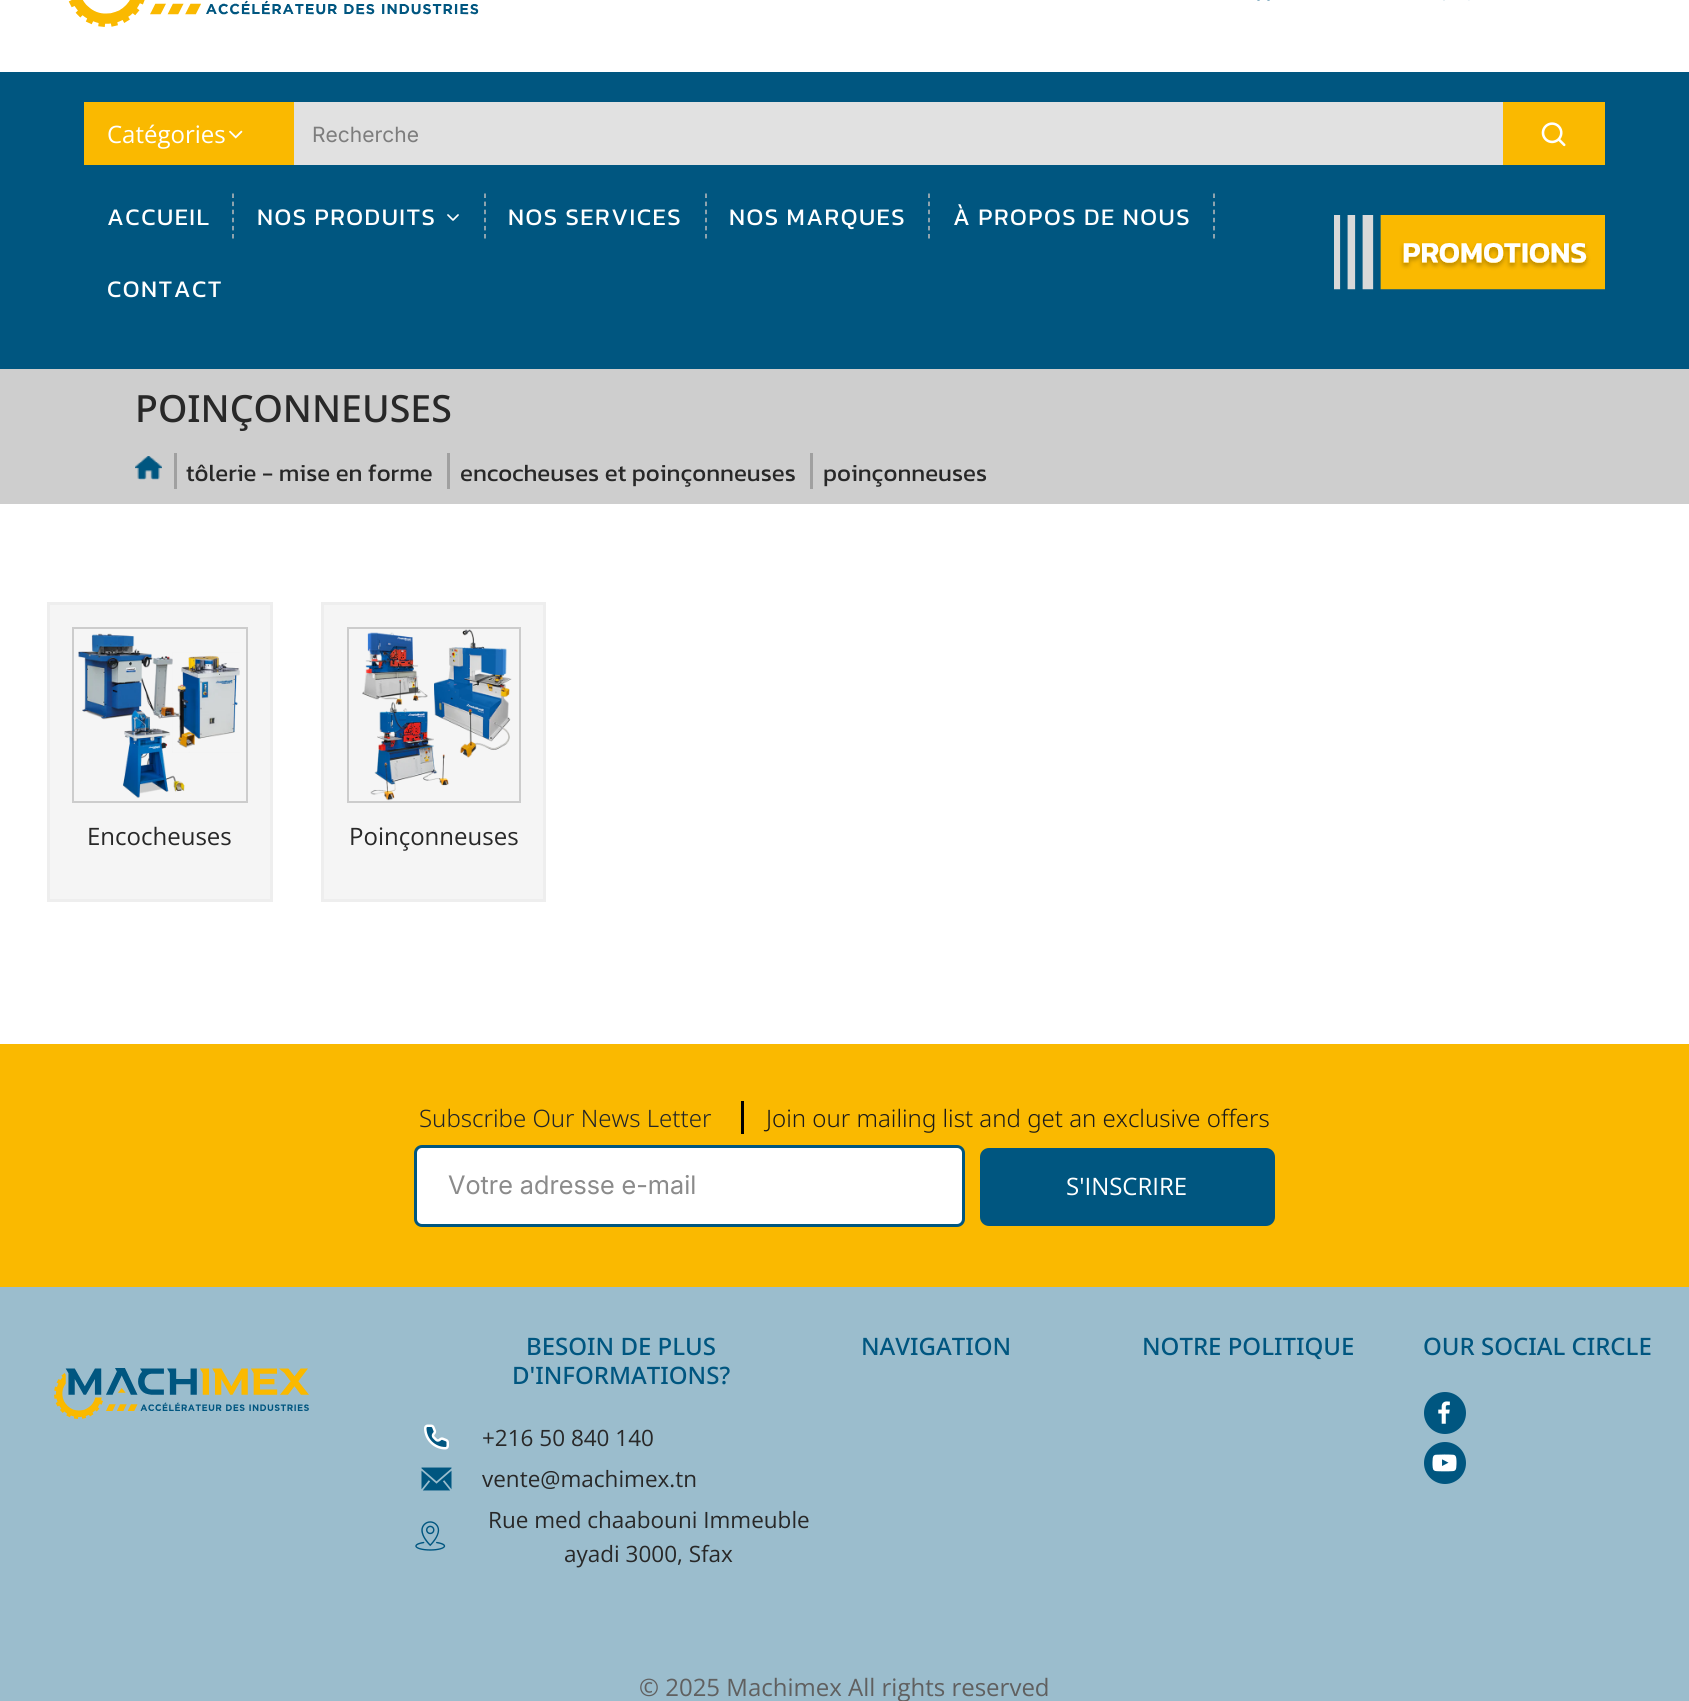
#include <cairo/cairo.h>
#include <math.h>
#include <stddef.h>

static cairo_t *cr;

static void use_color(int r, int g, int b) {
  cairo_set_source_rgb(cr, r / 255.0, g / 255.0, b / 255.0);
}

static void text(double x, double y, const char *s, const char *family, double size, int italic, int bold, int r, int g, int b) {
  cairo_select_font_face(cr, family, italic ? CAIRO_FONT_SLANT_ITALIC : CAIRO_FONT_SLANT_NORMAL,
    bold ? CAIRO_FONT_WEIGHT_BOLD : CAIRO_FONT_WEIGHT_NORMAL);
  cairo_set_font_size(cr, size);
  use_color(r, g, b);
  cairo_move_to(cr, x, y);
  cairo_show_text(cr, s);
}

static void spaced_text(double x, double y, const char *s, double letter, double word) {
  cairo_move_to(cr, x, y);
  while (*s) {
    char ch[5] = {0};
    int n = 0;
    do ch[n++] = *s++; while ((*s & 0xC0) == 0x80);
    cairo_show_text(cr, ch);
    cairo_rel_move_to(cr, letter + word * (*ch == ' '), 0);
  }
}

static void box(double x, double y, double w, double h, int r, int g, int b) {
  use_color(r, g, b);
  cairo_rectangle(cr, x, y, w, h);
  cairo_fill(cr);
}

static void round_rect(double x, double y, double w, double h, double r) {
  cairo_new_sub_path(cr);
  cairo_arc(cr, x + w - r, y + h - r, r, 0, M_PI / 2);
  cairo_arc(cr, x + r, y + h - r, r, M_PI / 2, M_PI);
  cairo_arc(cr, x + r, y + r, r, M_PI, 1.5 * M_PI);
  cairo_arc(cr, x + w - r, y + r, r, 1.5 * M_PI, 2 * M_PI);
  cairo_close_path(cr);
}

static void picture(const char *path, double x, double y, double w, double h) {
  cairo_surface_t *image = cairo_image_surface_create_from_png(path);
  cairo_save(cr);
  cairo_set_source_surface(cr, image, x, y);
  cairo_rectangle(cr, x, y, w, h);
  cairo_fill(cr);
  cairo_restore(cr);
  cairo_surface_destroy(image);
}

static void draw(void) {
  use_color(255, 255, 255);
  cairo_paint(cr);
  picture("img_01.png", 68, 0, 411, 27);
  picture("img_02.png", 1257, 0, 13, 1);
  picture("img_03.png", 1443, 0, 27, 1);
  box(0, 72, 1689, 297, 0, 86, 128);
  box(84, 102, 210, 63, 250, 185, 0);
  picture("img_04.png", 229, 130, 14, 9);
  box(294, 102, 1209, 63, 225, 225, 225);
  box(1503, 102, 102, 63, 250, 185, 0);
  picture("img_05.png", 1541, 122, 25, 25);
  cairo_new_path(cr);
  cairo_move_to(cr, 233, 193.5);
  cairo_line_to(cr, 233, 238.5);
  use_color(189, 189, 189);
  cairo_set_line_width(cr, 1.5);
  cairo_set_dash(cr, (double[]){4.5, 3.6}, 2, 0);
  cairo_stroke(cr);
  cairo_new_path(cr);
  cairo_move_to(cr, 485, 193.5);
  cairo_line_to(cr, 485, 238.5);
  cairo_stroke(cr);
  picture("img_06.png", 447, 214, 12, 7);
  cairo_new_path(cr);
  cairo_move_to(cr, 706, 193.5);
  cairo_line_to(cr, 706, 238.5);
  cairo_stroke(cr);
  cairo_new_path(cr);
  cairo_move_to(cr, 929, 193.5);
  cairo_line_to(cr, 929, 238.5);
  cairo_stroke(cr);
  cairo_new_path(cr);
  cairo_move_to(cr, 1214, 193.5);
  cairo_line_to(cr, 1214, 238.5);
  cairo_stroke(cr);
  picture("img_07.png", 1334, 215, 271, 75);
  box(0, 369, 1689, 135, 206, 206, 206);
  picture("img_08.png", 135, 456, 27, 24);
  box(174, 453, 3, 36, 160, 160, 160);
  box(447, 453, 3, 36, 160, 160, 160);
  box(810, 453, 3, 36, 160, 160, 160);
  use_color(245, 245, 245);
  cairo_rectangle(cr, 48.5, 603.5, 223, 297);
  cairo_fill_preserve(cr);
  use_color(238, 238, 238);
  cairo_set_line_width(cr, 3);
  cairo_set_dash(cr, NULL, 0, 0);
  cairo_stroke(cr);
  cairo_rectangle(cr, 73, 628, 174, 174);
  use_color(204, 204, 204);
  cairo_set_line_width(cr, 2);
  cairo_stroke(cr);
  picture("img_09.png", 78, 633, 162, 165);
  use_color(245, 245, 245);
  cairo_rectangle(cr, 322.5, 603.5, 222, 297);
  cairo_fill_preserve(cr);
  use_color(238, 238, 238);
  cairo_set_line_width(cr, 3);
  cairo_stroke(cr);
  cairo_rectangle(cr, 348, 628, 172, 174);
  use_color(204, 204, 204);
  cairo_set_line_width(cr, 2);
  cairo_stroke(cr);
  picture("img_10.png", 362, 629, 150, 172);
  box(0, 1044, 1689, 243, 250, 185, 0);
  box(741, 1101, 3, 33, 0, 0, 0);
  use_color(255, 255, 255);
  round_rect(415.5, 1146.5, 548, 79, 6.5);
  cairo_fill_preserve(cr);
  use_color(0, 86, 128);
  cairo_set_line_width(cr, 3);
  cairo_stroke(cr);
  round_rect(981, 1149, 293, 76, 8);
  cairo_fill_preserve(cr);
  cairo_set_line_width(cr, 2);
  cairo_stroke(cr);
  box(0, 1287, 1689, 414, 155, 189, 205);
  picture("img_11.png", 424, 1424, 25, 26);
  picture("img_12.png", 421, 1467, 31, 24);
  picture("img_13.png", 415, 1521, 31, 30);
  use_color(0, 86, 128);
  cairo_arc(cr, 1445, 1413, 21, 0, 2 * M_PI);
  cairo_fill(cr);
  picture("img_14.png", 1438, 1401, 12, 23);
  cairo_arc(cr, 1445, 1463, 21, 0, 2 * M_PI);
  cairo_fill(cr);
  picture("img_15.png", 1432, 1454, 25, 18);
  picture("img_16.png", 54, 1368, 255, 51);
  text(107, 143, "Catégories", "Open Sans", 24, 0, 0, 255, 255, 255);
  text(312, 142, "Recherche", "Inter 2", 21, 0, 0, 125, 125, 125);
  cairo_select_font_face(cr, "Kanit", CAIRO_FONT_SLANT_NORMAL, CAIRO_FONT_WEIGHT_NORMAL);
  cairo_set_font_size(cr, 24);
  use_color(255, 255, 255);
  spaced_text(107, 225, "ACCUEIL", 1.5, 0);
  spaced_text(257, 225, "NOS PRODUITS", 1.5, 0);
  spaced_text(508, 225, "NOS SERVICES", 1.5, 0);
  spaced_text(729, 225, "NOS MARQUES", 1.5, 0);
  spaced_text(953, 225, "À PROPOS DE NOUS", 1.5, 0);
  spaced_text(107, 297, "CONTACT", 1.5, 0);
  text(135, 422, "POINÇONNEUSES", "Noto Sans Medium", 37.5, 0, 0, 40, 40, 40);
  text(186, 481, "tôlerie - mise en forme", "Kanit", 24, 0, 0, 40, 40, 40);
  text(460, 481, "encocheuses et poinçonneuses", "Kanit", 24, 0, 0, 40, 40, 40);
  text(823, 481, "poinçonneuses", "Kanit", 24, 0, 0, 40, 40, 40);
  text(87, 845, "Encocheuses", "Open Sans", 24, 0, 0, 40, 40, 40);
  text(349, 845, "Poinçonneuses", "Open Sans", 24, 0, 0, 40, 40, 40);
  text(419, 1127, "Subscribe Our News Letter", "Noto Sans Light", 24, 0, 0, 33, 37, 41);
  text(766, 1127, "Join our mailing list and get an exclusive offers", "Noto Sans Light", 24, 0, 0, 26, 26, 26);
  text(448, 1194, "Votre adresse e-mail", "Inter", 25.5, 0, 0, 139, 139, 139);
  text(1066, 1195, "S'INSCRIRE", "Open Sans", 24, 0, 0, 255, 255, 255);
  text(526, 1355, "BESOIN DE PLUS", "Noto Sans Medium", 24, 0, 0, 0, 86, 128);
  text(512, 1384, "D'INFORMATIONS?", "Noto Sans Medium", 24, 0, 0, 0, 86, 128);
  text(482, 1446, "+216 50 840 140", "Open Sans", 22.5, 0, 0, 40, 40, 40);
  text(482, 1487, "vente@machimex.tn", "Open Sans", 22.5, 0, 0, 40, 40, 40);
  text(488, 1528, "Rue med chaabouni Immeuble", "Open Sans", 22.5, 0, 0, 40, 40, 40);
  text(564, 1562, "ayadi 3000, Sfax", "Open Sans", 22.5, 0, 0, 40, 40, 40);
  text(861, 1355, "NAVIGATION", "Noto Sans Medium", 24, 0, 0, 0, 86, 128);
  text(1142, 1355, "NOTRE POLITIQUE", "Noto Sans Medium", 24, 0, 0, 0, 86, 128);
  text(1423, 1355, "OUR SOCIAL CIRCLE", "Noto Sans Medium", 24, 0, 0, 0, 86, 128);
  text(639, 1696, "© 2025 Machimex All rights reserved", "Open Sans", 24, 0, 0, 96, 96, 96);
}

int main(void) {
  cairo_surface_t *surface = cairo_image_surface_create(CAIRO_FORMAT_RGB24, 1689, 1701);
  cr = cairo_create(surface);
  cairo_font_options_t *options = cairo_font_options_create();
  cairo_font_options_set_hint_metrics(options, CAIRO_HINT_METRICS_OFF);
  cairo_font_options_set_hint_style(options, CAIRO_HINT_STYLE_NONE);
  cairo_set_font_options(cr, options);
  cairo_set_miter_limit(cr, 4);
  draw();
  cairo_surface_write_to_png(surface, "out.png");
  cairo_font_options_destroy(options);
  cairo_destroy(cr);
  cairo_surface_destroy(surface);
  return 0;
}
